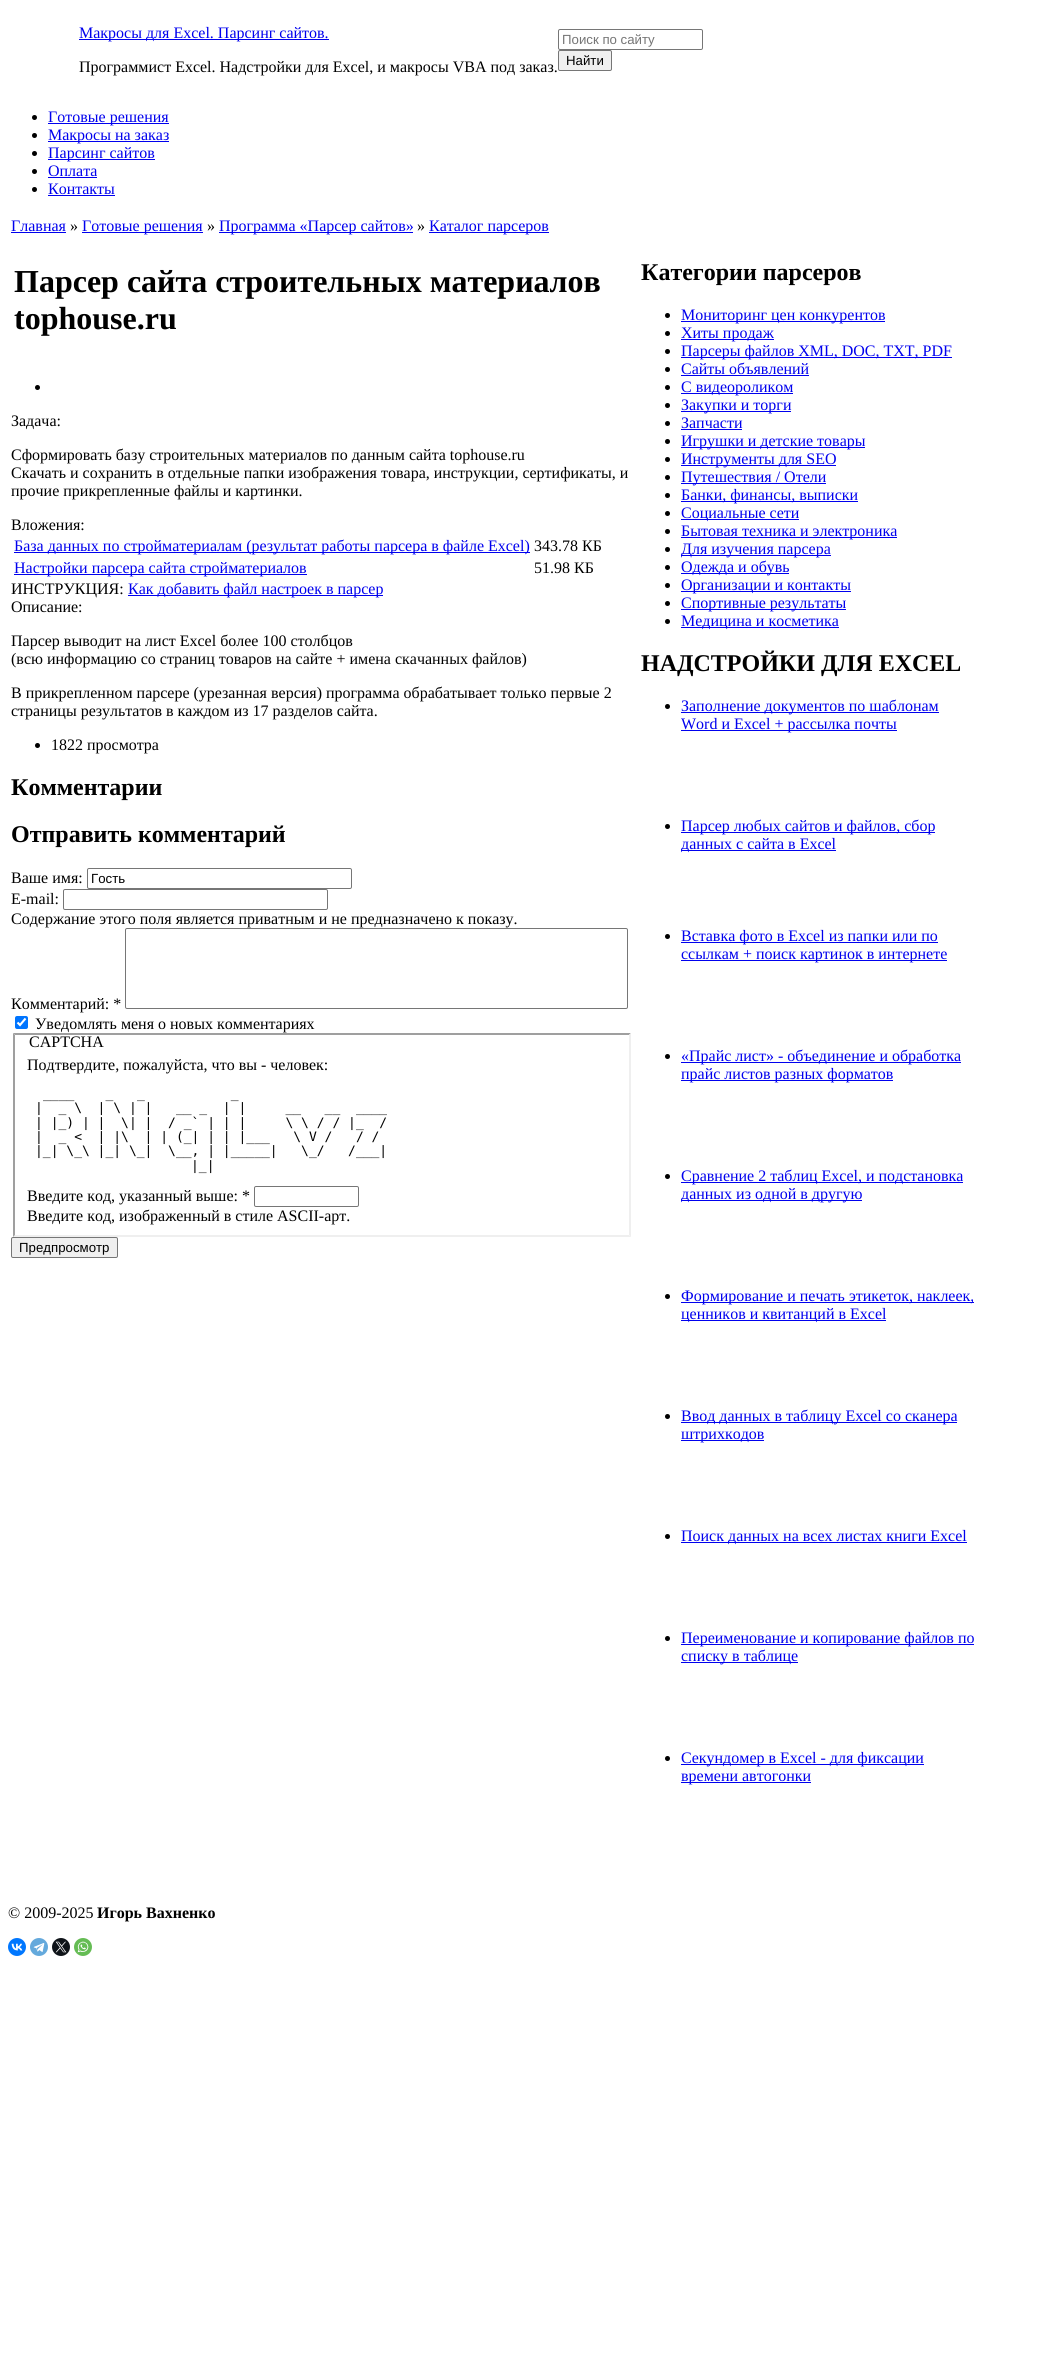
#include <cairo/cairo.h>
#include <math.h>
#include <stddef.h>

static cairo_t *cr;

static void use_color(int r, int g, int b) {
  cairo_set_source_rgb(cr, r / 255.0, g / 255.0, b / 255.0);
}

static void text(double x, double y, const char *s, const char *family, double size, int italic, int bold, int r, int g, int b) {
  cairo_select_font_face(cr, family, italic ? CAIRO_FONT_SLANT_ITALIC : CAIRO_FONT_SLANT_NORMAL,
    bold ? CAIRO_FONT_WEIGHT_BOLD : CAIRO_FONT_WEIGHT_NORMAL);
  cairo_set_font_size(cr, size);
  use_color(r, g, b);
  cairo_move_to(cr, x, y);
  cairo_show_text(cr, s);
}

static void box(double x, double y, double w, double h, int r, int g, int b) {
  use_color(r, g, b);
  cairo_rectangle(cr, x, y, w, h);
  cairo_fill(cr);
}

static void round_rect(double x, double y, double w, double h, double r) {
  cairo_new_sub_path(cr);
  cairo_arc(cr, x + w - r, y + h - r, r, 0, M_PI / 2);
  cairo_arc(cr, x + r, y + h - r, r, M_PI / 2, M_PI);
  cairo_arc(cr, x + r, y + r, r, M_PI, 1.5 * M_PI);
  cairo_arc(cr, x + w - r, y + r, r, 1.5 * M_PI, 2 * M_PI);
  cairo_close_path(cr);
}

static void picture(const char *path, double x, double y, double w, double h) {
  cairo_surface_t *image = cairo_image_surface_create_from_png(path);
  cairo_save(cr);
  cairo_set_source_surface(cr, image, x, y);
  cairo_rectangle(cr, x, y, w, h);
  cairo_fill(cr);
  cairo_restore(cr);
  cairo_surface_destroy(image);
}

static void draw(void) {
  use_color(255, 255, 255);
  cairo_paint(cr);
  box(79, 39, 250, 1, 0, 0, 238);
  round_rect(558.5, 29.5, 144, 20, 1.5);
  use_color(118, 118, 118);
  cairo_set_line_width(cr, 1);
  cairo_stroke(cr);
  use_color(239, 239, 239);
  round_rect(558.5, 50.5, 53, 20, 1.5);
  cairo_fill_preserve(cr);
  use_color(118, 118, 118);
  cairo_stroke(cr);
  use_color(0, 0, 0);
  cairo_arc(cr, 34.5, 117.5, 2.5, 0, 2 * M_PI);
  cairo_fill(cr);
  box(48, 123, 121, 1, 0, 0, 238);
  use_color(0, 0, 0);
  cairo_arc(cr, 34.5, 135.5, 2.5, 0, 2 * M_PI);
  cairo_fill(cr);
  box(48, 141, 121, 1, 0, 0, 238);
  use_color(0, 0, 0);
  cairo_arc(cr, 34.5, 153.5, 2.5, 0, 2 * M_PI);
  cairo_fill(cr);
  box(48, 159, 107, 1, 0, 0, 238);
  use_color(0, 0, 0);
  cairo_arc(cr, 34.5, 171.5, 2.5, 0, 2 * M_PI);
  cairo_fill(cr);
  box(48, 177, 49, 1, 0, 0, 238);
  use_color(0, 0, 0);
  cairo_arc(cr, 34.5, 189.5, 2.5, 0, 2 * M_PI);
  cairo_fill(cr);
  box(48, 195, 67, 1, 0, 0, 238);
  box(11, 232, 55, 1, 0, 0, 238);
  box(82, 232, 121, 1, 0, 0, 238);
  box(219, 232, 194, 1, 0, 0, 238);
  box(429, 232, 120, 1, 0, 0, 238);
  use_color(0, 0, 0);
  cairo_arc(cr, 37.5, 387.5, 2.5, 0, 2 * M_PI);
  cairo_fill(cr);
  box(14, 552, 516, 1, 0, 0, 238);
  box(14, 574, 293, 1, 0, 0, 238);
  box(128, 595, 255, 1, 0, 0, 238);
  use_color(0, 0, 0);
  cairo_arc(cr, 37.5, 745.5, 2.5, 0, 2 * M_PI);
  cairo_fill(cr);
  round_rect(87.5, 868.5, 264, 20, 1.5);
  use_color(118, 118, 118);
  cairo_stroke(cr);
  round_rect(63.5, 889.5, 264, 20, 1.5);
  cairo_stroke(cr);
  round_rect(125.5, 928.5, 502, 80, 1.5);
  cairo_stroke(cr);
  use_color(0, 117, 255);
  round_rect(15, 1016, 13, 13, 2);
  cairo_fill(cr);
  cairo_new_path(cr);
  cairo_move_to(cr, 17.5, 1022.5);
  cairo_line_to(cr, 20, 1025);
  cairo_line_to(cr, 25.5, 1018.5);
  use_color(255, 255, 255);
  cairo_set_line_width(cr, 2.1);
  cairo_stroke(cr);
  use_color(159, 159, 159);
  cairo_new_path(cr);
  cairo_move_to(cr, 13, 1033);
  cairo_line_to(cr, 631, 1033);
  cairo_line_to(cr, 629, 1035);
  cairo_line_to(cr, 15, 1035);
  cairo_close_path(cr);
  cairo_fill(cr);
  use_color(239, 239, 239);
  cairo_new_path(cr);
  cairo_move_to(cr, 631, 1033);
  cairo_line_to(cr, 631, 1237);
  cairo_line_to(cr, 629, 1235);
  cairo_line_to(cr, 629, 1035);
  cairo_close_path(cr);
  cairo_fill(cr);
  cairo_new_path(cr);
  cairo_move_to(cr, 631, 1237);
  cairo_line_to(cr, 13, 1237);
  cairo_line_to(cr, 15, 1235);
  cairo_line_to(cr, 629, 1235);
  cairo_close_path(cr);
  cairo_fill(cr);
  use_color(159, 159, 159);
  cairo_new_path(cr);
  cairo_move_to(cr, 13, 1237);
  cairo_line_to(cr, 13, 1033);
  cairo_line_to(cr, 15, 1035);
  cairo_line_to(cr, 15, 1235);
  cairo_close_path(cr);
  cairo_fill(cr);
  round_rect(254.5, 1186.5, 104, 20, 1.5);
  use_color(118, 118, 118);
  cairo_set_line_width(cr, 1);
  cairo_stroke(cr);
  use_color(239, 239, 239);
  round_rect(11.5, 1237.5, 106, 20, 1.5);
  cairo_fill_preserve(cr);
  use_color(118, 118, 118);
  cairo_stroke(cr);
  use_color(0, 0, 0);
  cairo_arc(cr, 667.5, 315.5, 2.5, 0, 2 * M_PI);
  cairo_fill(cr);
  box(681, 321, 204, 1, 0, 0, 238);
  use_color(0, 0, 0);
  cairo_arc(cr, 667.5, 333.5, 2.5, 0, 2 * M_PI);
  cairo_fill(cr);
  box(681, 339, 93, 1, 0, 0, 238);
  use_color(0, 0, 0);
  cairo_arc(cr, 667.5, 351.5, 2.5, 0, 2 * M_PI);
  cairo_fill(cr);
  box(681, 357, 271, 1, 0, 0, 238);
  use_color(0, 0, 0);
  cairo_arc(cr, 667.5, 369.5, 2.5, 0, 2 * M_PI);
  cairo_fill(cr);
  box(681, 375, 128, 1, 0, 0, 238);
  use_color(0, 0, 0);
  cairo_arc(cr, 667.5, 387.5, 2.5, 0, 2 * M_PI);
  cairo_fill(cr);
  box(681, 393, 112, 1, 0, 0, 238);
  use_color(0, 0, 0);
  cairo_arc(cr, 667.5, 405.5, 2.5, 0, 2 * M_PI);
  cairo_fill(cr);
  box(681, 411, 110, 1, 0, 0, 238);
  use_color(0, 0, 0);
  cairo_arc(cr, 667.5, 423.5, 2.5, 0, 2 * M_PI);
  cairo_fill(cr);
  box(681, 429, 61, 1, 0, 0, 238);
  use_color(0, 0, 0);
  cairo_arc(cr, 667.5, 441.5, 2.5, 0, 2 * M_PI);
  cairo_fill(cr);
  box(681, 447, 184, 1, 0, 0, 238);
  use_color(0, 0, 0);
  cairo_arc(cr, 667.5, 459.5, 2.5, 0, 2 * M_PI);
  cairo_fill(cr);
  box(681, 465, 155, 1, 0, 0, 238);
  use_color(0, 0, 0);
  cairo_arc(cr, 667.5, 477.5, 2.5, 0, 2 * M_PI);
  cairo_fill(cr);
  box(681, 483, 145, 1, 0, 0, 238);
  use_color(0, 0, 0);
  cairo_arc(cr, 667.5, 495.5, 2.5, 0, 2 * M_PI);
  cairo_fill(cr);
  box(681, 501, 177, 1, 0, 0, 238);
  use_color(0, 0, 0);
  cairo_arc(cr, 667.5, 513.5, 2.5, 0, 2 * M_PI);
  cairo_fill(cr);
  box(681, 519, 118, 1, 0, 0, 238);
  use_color(0, 0, 0);
  cairo_arc(cr, 667.5, 531.5, 2.5, 0, 2 * M_PI);
  cairo_fill(cr);
  box(681, 537, 216, 1, 0, 0, 238);
  use_color(0, 0, 0);
  cairo_arc(cr, 667.5, 549.5, 2.5, 0, 2 * M_PI);
  cairo_fill(cr);
  box(681, 555, 150, 1, 0, 0, 238);
  use_color(0, 0, 0);
  cairo_arc(cr, 667.5, 567.5, 2.5, 0, 2 * M_PI);
  cairo_fill(cr);
  box(681, 573, 108, 1, 0, 0, 238);
  use_color(0, 0, 0);
  cairo_arc(cr, 667.5, 585.5, 2.5, 0, 2 * M_PI);
  cairo_fill(cr);
  box(681, 591, 170, 1, 0, 0, 238);
  use_color(0, 0, 0);
  cairo_arc(cr, 667.5, 603.5, 2.5, 0, 2 * M_PI);
  cairo_fill(cr);
  box(681, 609, 165, 1, 0, 0, 238);
  use_color(0, 0, 0);
  cairo_arc(cr, 667.5, 621.5, 2.5, 0, 2 * M_PI);
  cairo_fill(cr);
  box(681, 627, 158, 1, 0, 0, 238);
  use_color(0, 0, 0);
  cairo_arc(cr, 667.5, 706.5, 2.5, 0, 2 * M_PI);
  cairo_fill(cr);
  box(681, 712, 258, 1, 0, 0, 238);
  box(681, 730, 216, 1, 0, 0, 238);
  use_color(0, 0, 0);
  cairo_arc(cr, 667.5, 826.5, 2.5, 0, 2 * M_PI);
  cairo_fill(cr);
  box(681, 832, 254, 1, 0, 0, 238);
  box(681, 850, 155, 1, 0, 0, 238);
  use_color(0, 0, 0);
  cairo_arc(cr, 667.5, 936.5, 2.5, 0, 2 * M_PI);
  cairo_fill(cr);
  box(681, 942, 257, 1, 0, 0, 238);
  box(681, 960, 266, 1, 0, 0, 238);
  use_color(0, 0, 0);
  cairo_arc(cr, 667.5, 1056.5, 2.5, 0, 2 * M_PI);
  cairo_fill(cr);
  box(681, 1062, 280, 1, 0, 0, 238);
  box(681, 1080, 212, 1, 0, 0, 238);
  use_color(0, 0, 0);
  cairo_arc(cr, 667.5, 1176.5, 2.5, 0, 2 * M_PI);
  cairo_fill(cr);
  box(681, 1182, 282, 1, 0, 0, 238);
  box(681, 1200, 181, 1, 0, 0, 238);
  use_color(0, 0, 0);
  cairo_arc(cr, 667.5, 1296.5, 2.5, 0, 2 * M_PI);
  cairo_fill(cr);
  box(681, 1302, 293, 1, 0, 0, 238);
  box(681, 1320, 205, 1, 0, 0, 238);
  use_color(0, 0, 0);
  cairo_arc(cr, 667.5, 1416.5, 2.5, 0, 2 * M_PI);
  cairo_fill(cr);
  box(681, 1422, 276, 1, 0, 0, 238);
  box(681, 1440, 83, 1, 0, 0, 238);
  use_color(0, 0, 0);
  cairo_arc(cr, 667.5, 1536.5, 2.5, 0, 2 * M_PI);
  cairo_fill(cr);
  box(681, 1542, 286, 1, 0, 0, 238);
  use_color(0, 0, 0);
  cairo_arc(cr, 667.5, 1638.5, 2.5, 0, 2 * M_PI);
  cairo_fill(cr);
  box(681, 1644, 293, 1, 0, 0, 238);
  box(681, 1662, 117, 1, 0, 0, 238);
  use_color(0, 0, 0);
  cairo_arc(cr, 667.5, 1758.5, 2.5, 0, 2 * M_PI);
  cairo_fill(cr);
  box(681, 1764, 243, 1, 0, 0, 238);
  box(681, 1782, 130, 1, 0, 0, 238);
  use_color(0, 119, 255);
  cairo_arc(cr, 17, 1947, 9, 0, 2 * M_PI);
  cairo_fill(cr);
  picture("img_01.png", 11, 1943, 12, 8);
  use_color(100, 169, 220);
  cairo_arc(cr, 39, 1947, 9, 0, 2 * M_PI);
  cairo_fill(cr);
  picture("img_02.png", 33, 1943, 12, 9);
  use_color(15, 20, 25);
  cairo_arc(cr, 61, 1947, 9, 0, 2 * M_PI);
  cairo_fill(cr);
  picture("img_03.png", 55, 1941, 12, 12);
  use_color(101, 188, 84);
  cairo_arc(cr, 83, 1947, 9, 0, 2 * M_PI);
  cairo_fill(cr);
  picture("img_04.png", 77, 1941, 12, 12);
  text(79, 38, "Макросы для Excel. Парсинг сайтов.", "Liberation Serif", 16, 0, 0, 0, 0, 238);
  text(79, 72, "Программист Excel. Надстройки для Excel, и макросы VBA под заказ.", "Liberation Serif", 16, 0, 0, 0, 0, 0);
  text(562, 44, "Поиск по сайту", "Liberation Sans", 13.25, 0, 0, 117, 117, 117);
  text(566, 65, "Найти", "Liberation Sans", 13.25, 0, 0, 0, 0, 0);
  text(48, 122, "Готовые решения", "Liberation Serif", 16, 0, 0, 0, 0, 238);
  text(48, 140, "Макросы на заказ", "Liberation Serif", 16, 0, 0, 0, 0, 238);
  text(48, 158, "Парсинг сайтов", "Liberation Serif", 16, 0, 0, 0, 0, 238);
  text(48, 176, "Оплата", "Liberation Serif", 16, 0, 0, 0, 0, 238);
  text(48, 194, "Контакты", "Liberation Serif", 16, 0, 0, 0, 0, 238);
  text(11, 231, "Главная", "Liberation Serif", 16, 0, 0, 0, 0, 238);
  text(70, 231, "»", "Liberation Serif", 16, 0, 0, 0, 0, 0);
  text(82, 231, "Готовые решения", "Liberation Serif", 16, 0, 0, 0, 0, 238);
  text(207, 231, "»", "Liberation Serif", 16, 0, 0, 0, 0, 0);
  text(219, 231, "Программа «Парсер сайтов»", "Liberation Serif", 16, 0, 0, 0, 0, 238);
  text(417, 231, "»", "Liberation Serif", 16, 0, 0, 0, 0, 0);
  text(429, 231, "Каталог парсеров", "Liberation Serif", 16, 0, 0, 0, 0, 238);
  text(14, 292, "Парсер сайта строительных материалов", "Liberation Serif", 32, 0, 1, 0, 0, 0);
  text(14, 329, "tophouse.ru", "Liberation Serif", 32, 0, 1, 0, 0, 0);
  text(11, 426, "Задача:", "Liberation Serif", 16, 0, 0, 0, 0, 0);
  text(11, 460, "Сформировать базу строительных материалов по данным сайта tophouse.ru", "Liberation Serif", 16, 0, 0, 0, 0, 0);
  text(11, 478, "Скачать и сохранить в отдельные папки изображения товара, инструкции, сертификаты, и", "Liberation Serif", 16, 0, 0, 0, 0, 0);
  text(11, 496, "прочие прикрепленные файлы и картинки.", "Liberation Serif", 16, 0, 0, 0, 0, 0);
  text(11, 530, "Вложения:", "Liberation Serif", 16, 0, 0, 0, 0, 0);
  text(14, 551, "База данных по стройматериалам (результат работы парсера в файле Excel)", "Liberation Serif", 16, 0, 0, 0, 0, 238);
  text(534, 551, "343.78 КБ", "Liberation Serif", 16, 0, 0, 0, 0, 0);
  text(14, 573, "Настройки парсера сайта стройматериалов", "Liberation Serif", 16, 0, 0, 0, 0, 238);
  text(534, 573, "51.98 КБ", "Liberation Serif", 16, 0, 0, 0, 0, 0);
  text(11, 594, "ИНСТРУКЦИЯ:", "Liberation Serif", 16, 0, 0, 0, 0, 0);
  text(128, 594, "Как добавить файл настроек в парсер", "Liberation Serif", 16, 0, 0, 0, 0, 238);
  text(11, 612, "Описание:", "Liberation Serif", 16, 0, 0, 0, 0, 0);
  text(11, 646, "Парсер выводит на лист Excel более 100 столбцов", "Liberation Serif", 16, 0, 0, 0, 0, 0);
  text(11, 664, "(всю информацию со страниц товаров на сайте + имена скачанных файлов)", "Liberation Serif", 16, 0, 0, 0, 0, 0);
  text(11, 698, "В прикрепленном парсере (урезанная версия) программа обрабатывает только первые 2", "Liberation Serif", 16, 0, 0, 0, 0, 0);
  text(11, 716, "страницы результатов в каждом из 17 разделов сайта.", "Liberation Serif", 16, 0, 0, 0, 0, 0);
  text(51, 750, "1822 просмотра", "Liberation Serif", 16, 0, 0, 0, 0, 0);
  text(11, 795, "Комментарии", "Liberation Serif", 24, 0, 1, 0, 0, 0);
  text(11, 842, "Отправить комментарий", "Liberation Serif", 24, 0, 1, 0, 0, 0);
  text(11, 883, "Ваше имя:", "Liberation Serif", 16, 0, 0, 0, 0, 0);
  text(91, 883, "Гость", "Liberation Sans", 13.25, 0, 0, 0, 0, 0);
  text(11, 904, "E-mail:", "Liberation Serif", 16, 0, 0, 0, 0, 0);
  text(11, 924, "Содержание этого поля является приватным и не предназначено к показу.", "Liberation Serif", 16, 0, 0, 0, 0, 0);
  text(11, 1009, "Комментарий: *", "Liberation Serif", 16, 0, 0, 0, 0, 0);
  text(35, 1029, "Уведомлять меня о новых комментариях", "Liberation Serif", 16, 0, 0, 0, 0, 0);
  text(29, 1047, "CAPTCHA", "Liberation Serif", 16, 0, 0, 0, 0, 0);
  text(27, 1070, "Подтвердите, пожалуйста, что вы - человек:", "Liberation Serif", 16, 0, 0, 0, 0, 0);
  text(43, 1098, "____    _   _           _", "DejaVu Sans Mono", 13, 0, 0, 0, 0, 0);
  text(35, 1112, "|  _ \\  | \\ | |   __ _  | |     __   __  ____", "DejaVu Sans Mono", 13, 0, 0, 0, 0, 0);
  text(35, 1127, "| |_) | |  \\| |  / _` | | |     \\ \\ / / |_  /", "DejaVu Sans Mono", 13, 0, 0, 0, 0, 0);
  text(35, 1141, "|  _ <  | |\\  | | (_| | | |___   \\ V /   / /", "DejaVu Sans Mono", 13, 0, 0, 0, 0, 0);
  text(35, 1155, "|_| \\_\\ |_| \\_|  \\__, | |_____|   \\_/   /___|", "DejaVu Sans Mono", 13, 0, 0, 0, 0, 0);
  text(191, 1170, "|_|", "DejaVu Sans Mono", 13, 0, 0, 0, 0, 0);
  text(27, 1201, "Введите код, указанный выше: *", "Liberation Serif", 16, 0, 0, 0, 0, 0);
  text(27, 1221, "Введите код, изображенный в стиле ASCII-арт.", "Liberation Serif", 16, 0, 0, 0, 0, 0);
  text(19, 1252, "Предпросмотр", "Liberation Sans", 13.25, 0, 0, 0, 0, 0);
  text(641, 280, "Категории парсеров", "Liberation Serif", 24, 0, 1, 0, 0, 0);
  text(681, 320, "Мониторинг цен конкурентов", "Liberation Serif", 16, 0, 0, 0, 0, 238);
  text(681, 338, "Хиты продаж", "Liberation Serif", 16, 0, 0, 0, 0, 238);
  text(681, 356, "Парсеры файлов XML, DOC, TXT, PDF", "Liberation Serif", 16, 0, 0, 0, 0, 238);
  text(681, 374, "Сайты объявлений", "Liberation Serif", 16, 0, 0, 0, 0, 238);
  text(681, 392, "С видеороликом", "Liberation Serif", 16, 0, 0, 0, 0, 238);
  text(681, 410, "Закупки и торги", "Liberation Serif", 16, 0, 0, 0, 0, 238);
  text(681, 428, "Запчасти", "Liberation Serif", 16, 0, 0, 0, 0, 238);
  text(681, 446, "Игрушки и детские товары", "Liberation Serif", 16, 0, 0, 0, 0, 238);
  text(681, 464, "Инструменты для SEO", "Liberation Serif", 16, 0, 0, 0, 0, 238);
  text(681, 482, "Путешествия / Отели", "Liberation Serif", 16, 0, 0, 0, 0, 238);
  text(681, 500, "Банки, финансы, выписки", "Liberation Serif", 16, 0, 0, 0, 0, 238);
  text(681, 518, "Социальные сети", "Liberation Serif", 16, 0, 0, 0, 0, 238);
  text(681, 536, "Бытовая техника и электроника", "Liberation Serif", 16, 0, 0, 0, 0, 238);
  text(681, 554, "Для изучения парсера", "Liberation Serif", 16, 0, 0, 0, 0, 238);
  text(681, 572, "Одежда и обувь", "Liberation Serif", 16, 0, 0, 0, 0, 238);
  text(681, 590, "Организации и контакты", "Liberation Serif", 16, 0, 0, 0, 0, 238);
  text(681, 608, "Спортивные результаты", "Liberation Serif", 16, 0, 0, 0, 0, 238);
  text(681, 626, "Медицина и косметика", "Liberation Serif", 16, 0, 0, 0, 0, 238);
  text(641, 671, "НАДСТРОЙКИ ДЛЯ EXCEL", "Liberation Serif", 24, 0, 1, 0, 0, 0);
  text(681, 711, "Заполнение документов по шаблонам", "Liberation Serif", 16, 0, 0, 0, 0, 238);
  text(681, 729, "Word и Excel + рассылка почты", "Liberation Serif", 16, 0, 0, 0, 0, 238);
  text(681, 831, "Парсер любых сайтов и файлов, сбор", "Liberation Serif", 16, 0, 0, 0, 0, 238);
  text(681, 849, "данных с сайта в Excel", "Liberation Serif", 16, 0, 0, 0, 0, 238);
  text(681, 941, "Вставка фото в Excel из папки или по", "Liberation Serif", 16, 0, 0, 0, 0, 238);
  text(681, 959, "ссылкам + поиск картинок в интернете", "Liberation Serif", 16, 0, 0, 0, 0, 238);
  text(681, 1061, "«Прайс лист» - объединение и обработка", "Liberation Serif", 16, 0, 0, 0, 0, 238);
  text(681, 1079, "прайс листов разных форматов", "Liberation Serif", 16, 0, 0, 0, 0, 238);
  text(681, 1181, "Сравнение 2 таблиц Excel, и подстановка", "Liberation Serif", 16, 0, 0, 0, 0, 238);
  text(681, 1199, "данных из одной в другую", "Liberation Serif", 16, 0, 0, 0, 0, 238);
  text(681, 1301, "Формирование и печать этикеток, наклеек,", "Liberation Serif", 16, 0, 0, 0, 0, 238);
  text(681, 1319, "ценников и квитанций в Excel", "Liberation Serif", 16, 0, 0, 0, 0, 238);
  text(681, 1421, "Ввод данных в таблицу Excel со сканера", "Liberation Serif", 16, 0, 0, 0, 0, 238);
  text(681, 1439, "штрихкодов", "Liberation Serif", 16, 0, 0, 0, 0, 238);
  text(681, 1541, "Поиск данных на всех листах книги Excel", "Liberation Serif", 16, 0, 0, 0, 0, 238);
  text(681, 1643, "Переименование и копирование файлов по", "Liberation Serif", 16, 0, 0, 0, 0, 238);
  text(681, 1661, "списку в таблице", "Liberation Serif", 16, 0, 0, 0, 0, 238);
  text(681, 1763, "Секундомер в Excel - для фиксации", "Liberation Serif", 16, 0, 0, 0, 0, 238);
  text(681, 1781, "времени автогонки", "Liberation Serif", 16, 0, 0, 0, 0, 238);
  text(8, 1918, "© 2009-2025", "Liberation Serif", 16, 0, 0, 0, 0, 0);
  text(97, 1918, "Игорь Вахненко", "Liberation Serif", 16, 0, 1, 0, 0, 0);
}

int main(void) {
  cairo_surface_t *surface = cairo_image_surface_create(CAIRO_FORMAT_RGB24, 1041, 2366);
  cr = cairo_create(surface);
  cairo_font_options_t *options = cairo_font_options_create();
  cairo_font_options_set_hint_metrics(options, CAIRO_HINT_METRICS_OFF);
  cairo_font_options_set_hint_style(options, CAIRO_HINT_STYLE_NONE);
  cairo_set_font_options(cr, options);
  cairo_set_miter_limit(cr, 4);
  draw();
  cairo_surface_write_to_png(surface, "out.png");
  cairo_font_options_destroy(options);
  cairo_destroy(cr);
  cairo_surface_destroy(surface);
  return 0;
}
